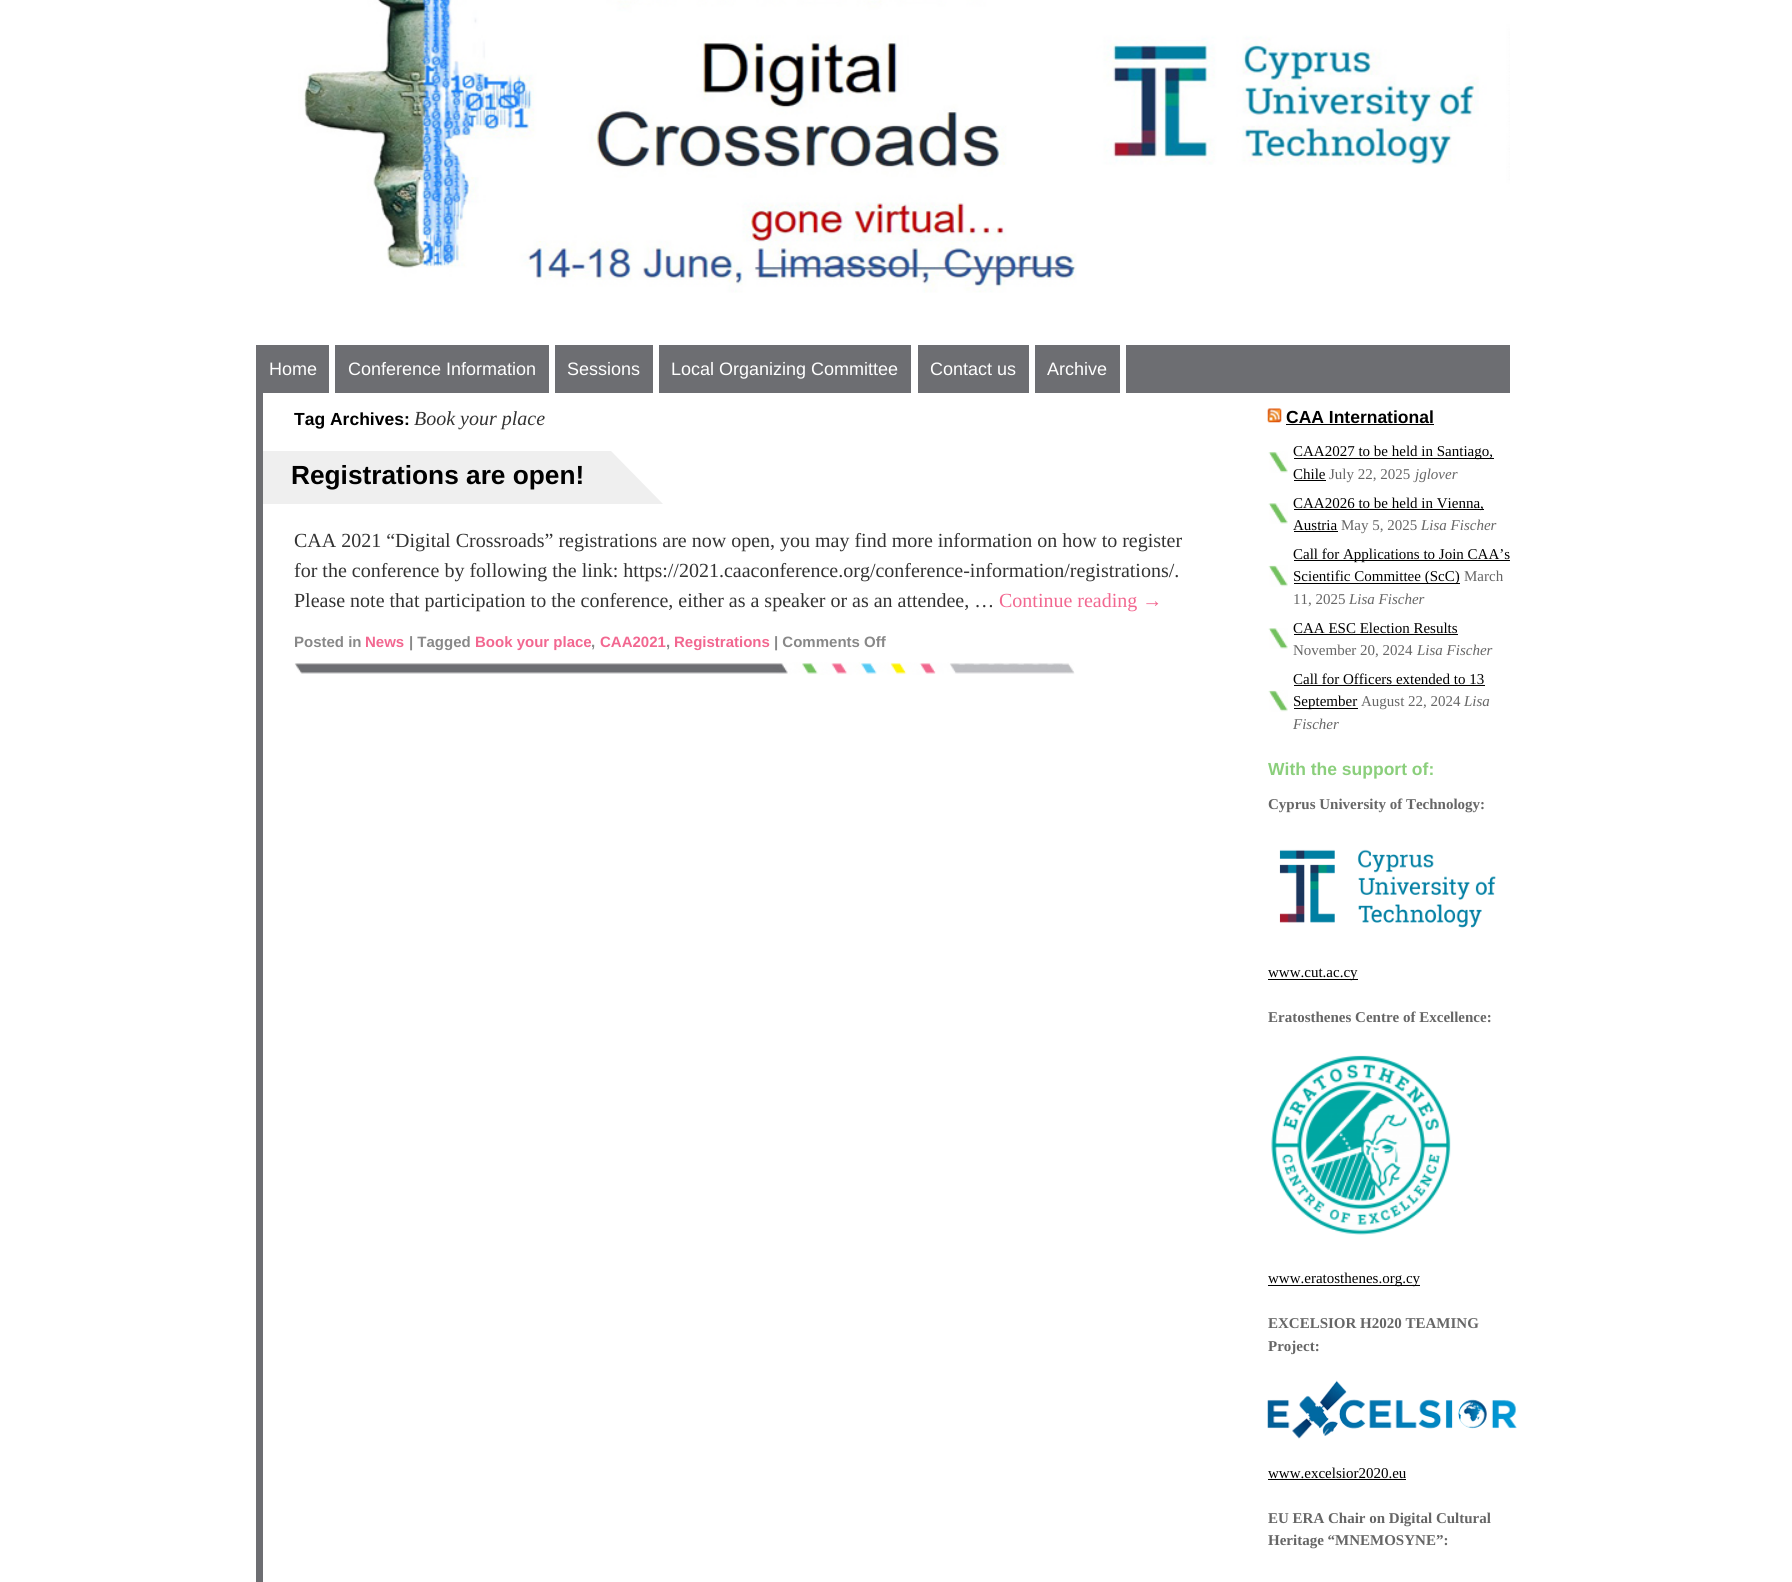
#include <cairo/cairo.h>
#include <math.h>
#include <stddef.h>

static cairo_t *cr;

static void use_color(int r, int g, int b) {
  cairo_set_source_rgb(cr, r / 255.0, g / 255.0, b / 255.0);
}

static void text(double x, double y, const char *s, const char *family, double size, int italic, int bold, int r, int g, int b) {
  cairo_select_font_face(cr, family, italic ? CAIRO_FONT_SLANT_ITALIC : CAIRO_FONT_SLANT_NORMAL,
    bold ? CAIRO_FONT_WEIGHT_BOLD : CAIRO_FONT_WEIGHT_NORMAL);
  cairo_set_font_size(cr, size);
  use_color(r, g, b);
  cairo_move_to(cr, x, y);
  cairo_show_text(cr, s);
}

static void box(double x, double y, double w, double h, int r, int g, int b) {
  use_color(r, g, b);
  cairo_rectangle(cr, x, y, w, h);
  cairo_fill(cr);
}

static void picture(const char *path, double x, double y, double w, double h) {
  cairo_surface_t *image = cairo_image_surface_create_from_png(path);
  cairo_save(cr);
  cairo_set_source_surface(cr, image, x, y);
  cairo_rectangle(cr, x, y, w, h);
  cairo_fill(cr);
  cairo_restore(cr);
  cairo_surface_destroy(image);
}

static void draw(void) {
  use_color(255, 255, 255);
  cairo_paint(cr);
  picture("img_01.png", 298, 0, 1212, 293);
  box(256, 345, 1254, 48, 109, 110, 114);
  box(329, 345, 6, 48, 255, 255, 255);
  box(549, 345, 6, 48, 255, 255, 255);
  box(653, 345, 6, 48, 255, 255, 255);
  box(911, 345, 7, 48, 255, 255, 255);
  box(1029, 345, 6, 48, 255, 255, 255);
  box(1120, 345, 6, 48, 255, 255, 255);
  box(256, 393, 7, 1189, 109, 110, 114);
  cairo_save(cr);
  cairo_rectangle(cr, 263, 393, 1280, 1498);
  cairo_clip(cr);
  use_color(239, 239, 239);
  cairo_new_path(cr);
  cairo_move_to(cr, 174, 451);
  cairo_line_to(cr, 611, 451);
  cairo_line_to(cr, 663, 504);
  cairo_line_to(cr, 226, 504);
  cairo_close_path(cr);
  cairo_fill(cr);
  cairo_restore(cr);
  picture("img_02.png", 294, 662, 781, 13);
  picture("img_03.png", 1267, 408, 15, 15);
  box(1286, 424, 148, 1, 0, 0, 0);
  picture("img_04.png", 1268, 451, 20, 22);
  box(1294, 458, 200, 1, 0, 0, 0);
  box(1294, 480, 32, 1, 0, 0, 0);
  picture("img_05.png", 1268, 503, 20, 21);
  box(1294, 509, 190, 1, 0, 0, 0);
  box(1294, 531, 44, 1, 0, 0, 0);
  picture("img_06.png", 1268, 565, 20, 22);
  box(1294, 560, 216, 1, 0, 0, 0);
  box(1294, 583, 166, 1, 0, 0, 0);
  picture("img_05.png", 1268, 628, 20, 21);
  box(1294, 634, 164, 1, 0, 0, 0);
  picture("img_06.png", 1268, 690, 20, 22);
  box(1294, 685, 191, 1, 0, 0, 0);
  box(1294, 708, 64, 1, 0, 0, 0);
  picture("img_07.png", 1279, 849, 217, 79);
  box(1268, 979, 90, 1, 0, 0, 0);
  picture("img_08.png", 1271, 1055, 180, 180);
  box(1268, 1285, 152, 1, 0, 0, 0);
  picture("img_09.png", 1267, 1380, 250, 59);
  box(1268, 1479, 138, 1, 0, 0, 0);
  text(269, 375, "Home", "Liberation Sans", 18, 0, 0, 255, 255, 255);
  text(348, 375, "Conference Information", "Liberation Sans", 18, 0, 0, 255, 255, 255);
  text(567, 375, "Sessions", "Liberation Sans", 18, 0, 0, 255, 255, 255);
  text(671, 375, "Local Organizing Committee", "Liberation Sans", 18, 0, 0, 255, 255, 255);
  text(930, 375, "Contact us", "Liberation Sans", 18, 0, 0, 255, 255, 255);
  text(1047, 375, "Archive", "Liberation Sans", 18, 0, 0, 255, 255, 255);
  text(294, 425, "Tag Archives:", "Liberation Sans", 17.5, 0, 1, 0, 0, 0);
  text(414, 425, "Book your place", "Liberation Serif", 20, 1, 0, 51, 51, 51);
  text(291, 484, "Registrations are open!", "Liberation Sans", 26.25, 0, 1, 0, 0, 0);
  text(294, 547, "CAA 2021 “Digital Crossroads” registrations are now open, you may find more information on how to register", "Liberation Serif", 20, 0, 0, 51, 51, 51);
  text(294, 577, "for the conference by following the link: https://2021.caaconference.org/conference-information/registrations/.", "Liberation Serif", 20, 0, 0, 51, 51, 51);
  text(294, 607, "Please note that participation to the conference, either as a speaker or as an attendee, …", "Liberation Serif", 20, 0, 0, 51, 51, 51);
  text(999, 607, "Continue reading →", "Liberation Serif", 20, 0, 0, 242, 103, 144);
  text(294, 647, "Posted in", "Liberation Sans", 15, 0, 1, 136, 136, 136);
  text(365, 647, "News", "Liberation Sans", 15, 0, 1, 242, 103, 144);
  text(409, 647, "| Tagged", "Liberation Sans", 15, 0, 1, 136, 136, 136);
  text(475, 647, "Book your place", "Liberation Sans", 15, 0, 1, 242, 103, 144);
  text(591, 647, ",", "Liberation Sans", 15, 0, 1, 136, 136, 136);
  text(600, 647, "CAA2021", "Liberation Sans", 15, 0, 1, 242, 103, 144);
  text(666, 647, ",", "Liberation Sans", 15, 0, 1, 136, 136, 136);
  text(674, 647, "Registrations", "Liberation Sans", 15, 0, 1, 242, 103, 144);
  text(774, 647, "| Comments Off", "Liberation Sans", 15, 0, 1, 136, 136, 136);
  text(1286, 423, "CAA International", "Liberation Sans", 17.5, 0, 1, 0, 0, 0);
  text(1293, 456, "CAA2027 to be held in Santiago,", "Liberation Serif", 15, 0, 0, 0, 0, 0);
  text(1293, 479, "Chile", "Liberation Serif", 15, 0, 0, 0, 0, 0);
  text(1329, 479, "July 22, 2025", "Liberation Serif", 15, 0, 0, 102, 102, 102);
  text(1415, 479, "jglover", "Liberation Serif", 15, 1, 0, 102, 102, 102);
  text(1293, 508, "CAA2026 to be held in Vienna,", "Liberation Serif", 15, 0, 0, 0, 0, 0);
  text(1293, 530, "Austria", "Liberation Serif", 15, 0, 0, 0, 0, 0);
  text(1341, 530, "May 5, 2025", "Liberation Serif", 15, 0, 0, 102, 102, 102);
  text(1421, 530, "Lisa Fischer", "Liberation Serif", 15, 1, 0, 102, 102, 102);
  text(1293, 559, "Call for Applications to Join CAA’s", "Liberation Serif", 15, 0, 0, 0, 0, 0);
  text(1293, 581, "Scientific Committee (ScC)", "Liberation Serif", 15, 0, 0, 0, 0, 0);
  text(1464, 581, "March", "Liberation Serif", 15, 0, 0, 102, 102, 102);
  text(1293, 604, "11, 2025", "Liberation Serif", 15, 0, 0, 102, 102, 102);
  text(1349, 604, "Lisa Fischer", "Liberation Serif", 15, 1, 0, 102, 102, 102);
  text(1293, 633, "CAA ESC Election Results", "Liberation Serif", 15, 0, 0, 0, 0, 0);
  text(1293, 655, "November 20, 2024", "Liberation Serif", 15, 0, 0, 102, 102, 102);
  text(1417, 655, "Lisa Fischer", "Liberation Serif", 15, 1, 0, 102, 102, 102);
  text(1293, 684, "Call for Officers extended to 13", "Liberation Serif", 15, 0, 0, 0, 0, 0);
  text(1293, 706, "September", "Liberation Serif", 15, 0, 0, 0, 0, 0);
  text(1361, 706, "August 22, 2024", "Liberation Serif", 15, 0, 0, 102, 102, 102);
  text(1464, 706, "Lisa", "Liberation Serif", 15, 1, 0, 102, 102, 102);
  text(1293, 729, "Fischer", "Liberation Serif", 15, 1, 0, 102, 102, 102);
  text(1268, 775, "With the support of:", "Liberation Sans", 17.5, 0, 1, 139, 207, 124);
  text(1268, 809, "Cyprus University of Technology:", "Liberation Serif", 15, 0, 1, 102, 102, 102);
  text(1268, 977, "www.cut.ac.cy", "Liberation Serif", 15, 0, 0, 0, 0, 0);
  text(1268, 1022, "Eratosthenes Centre of Excellence:", "Liberation Serif", 15, 0, 1, 102, 102, 102);
  text(1268, 1283, "www.eratosthenes.org.cy", "Liberation Serif", 15, 0, 0, 0, 0, 0);
  text(1268, 1328, "EXCELSIOR H2020 TEAMING", "Liberation Serif", 15, 0, 1, 102, 102, 102);
  text(1268, 1351, "Project:", "Liberation Serif", 15, 0, 1, 102, 102, 102);
  text(1268, 1478, "www.excelsior2020.eu", "Liberation Serif", 15, 0, 0, 0, 0, 0);
  text(1268, 1523, "EU ERA Chair on Digital Cultural", "Liberation Serif", 15, 0, 1, 102, 102, 102);
  text(1268, 1545, "Heritage “MNEMOSYNE”:", "Liberation Serif", 15, 0, 1, 102, 102, 102);
}

int main(void) {
  cairo_surface_t *surface = cairo_image_surface_create(CAIRO_FORMAT_RGB24, 1792, 1582);
  cr = cairo_create(surface);
  cairo_font_options_t *options = cairo_font_options_create();
  cairo_font_options_set_hint_metrics(options, CAIRO_HINT_METRICS_OFF);
  cairo_font_options_set_hint_style(options, CAIRO_HINT_STYLE_NONE);
  cairo_set_font_options(cr, options);
  cairo_set_miter_limit(cr, 4);
  draw();
  cairo_surface_write_to_png(surface, "out.png");
  cairo_font_options_destroy(options);
  cairo_destroy(cr);
  cairo_surface_destroy(surface);
  return 0;
}
